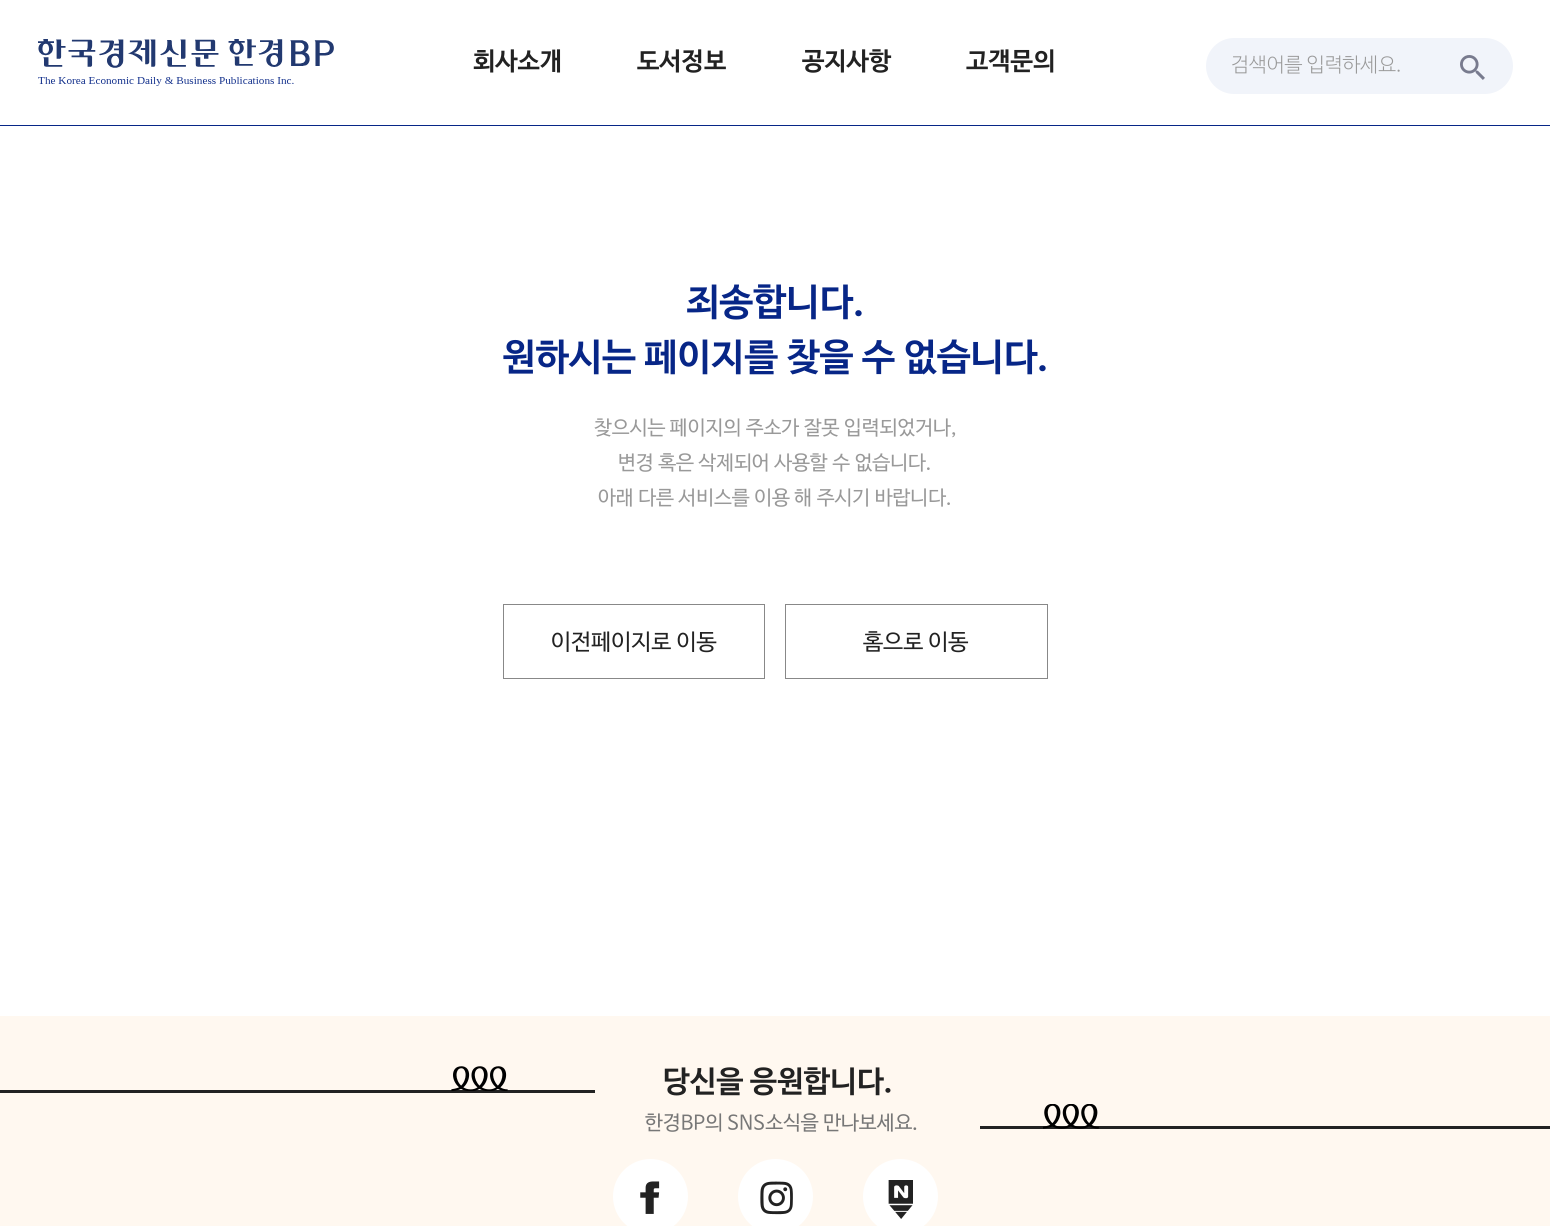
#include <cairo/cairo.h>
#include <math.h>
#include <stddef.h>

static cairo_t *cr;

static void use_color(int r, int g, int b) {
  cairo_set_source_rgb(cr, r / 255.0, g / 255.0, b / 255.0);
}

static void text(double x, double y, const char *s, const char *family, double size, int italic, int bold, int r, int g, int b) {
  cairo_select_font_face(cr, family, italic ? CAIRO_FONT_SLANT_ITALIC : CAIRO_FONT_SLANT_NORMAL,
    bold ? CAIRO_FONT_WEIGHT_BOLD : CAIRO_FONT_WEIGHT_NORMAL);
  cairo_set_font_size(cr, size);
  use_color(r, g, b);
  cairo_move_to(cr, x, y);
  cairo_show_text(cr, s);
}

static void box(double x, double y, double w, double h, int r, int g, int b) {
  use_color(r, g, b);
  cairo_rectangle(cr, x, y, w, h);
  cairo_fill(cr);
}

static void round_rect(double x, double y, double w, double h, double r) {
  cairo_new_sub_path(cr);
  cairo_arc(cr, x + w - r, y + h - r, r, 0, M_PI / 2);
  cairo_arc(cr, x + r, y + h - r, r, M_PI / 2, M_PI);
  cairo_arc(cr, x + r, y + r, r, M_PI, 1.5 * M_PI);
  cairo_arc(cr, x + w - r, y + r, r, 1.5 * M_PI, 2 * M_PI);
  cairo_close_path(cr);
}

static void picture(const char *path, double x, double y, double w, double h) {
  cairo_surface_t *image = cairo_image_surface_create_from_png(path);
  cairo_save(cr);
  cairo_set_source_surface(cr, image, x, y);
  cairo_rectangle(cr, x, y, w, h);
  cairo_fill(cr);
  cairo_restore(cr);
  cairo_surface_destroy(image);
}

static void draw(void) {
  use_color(255, 255, 255);
  cairo_paint(cr);
  picture("img_01.png", 38, 39, 296, 47);
  use_color(241, 244, 250);
  round_rect(1206, 38, 307, 56, 28);
  cairo_fill(cr);
  picture("img_02.png", 1460, 55, 25, 25);
  box(0, 125, 1550, 1, 7, 38, 135);
  cairo_rectangle(cr, 503.5, 604.5, 261, 74);
  use_color(136, 136, 136);
  cairo_set_line_width(cr, 1);
  cairo_stroke(cr);
  cairo_rectangle(cr, 785.5, 604.5, 262, 74);
  cairo_stroke(cr);
  box(0, 1016, 1550, 210, 255, 248, 240);
  box(0, 1090, 595, 3, 34, 34, 34);
  picture("img_03.png", 451, 1066, 57, 25);
  box(980, 1126, 570, 3, 34, 34, 34);
  picture("img_04.png", 1043, 1104, 56, 25);
  use_color(255, 255, 255);
  cairo_arc(cr, 650.5, 1196.5, 37.5, 0, 2 * M_PI);
  cairo_fill(cr);
  picture("img_05.png", 640, 1181, 20, 33);
  cairo_arc(cr, 775.5, 1196.5, 37.5, 0, 2 * M_PI);
  cairo_fill(cr);
  picture("img_06.png", 760, 1181, 33, 34);
  cairo_arc(cr, 900.5, 1196.5, 37.5, 0, 2 * M_PI);
  cairo_fill(cr);
  picture("img_07.png", 888, 1180, 25, 39);
  text(473, 69, "회사소개", "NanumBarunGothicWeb", 25, 0, 1, 34, 34, 34);
  text(637, 69, "도서정보", "NanumBarunGothicWeb", 25, 0, 1, 34, 34, 34);
  text(802, 69, "공지사항", "NanumBarunGothicWeb", 25, 0, 1, 34, 34, 34);
  text(966, 69, "고객문의", "NanumBarunGothicWeb", 25, 0, 1, 34, 34, 34);
  text(1231, 71, "검색어를 입력하세요.", "NanumBarunGothicWeb Light", 20, 0, 0, 153, 153, 153);
  text(686, 314, "죄송합니다.", "NanumBarunGothicWeb", 37.5, 0, 1, 7, 38, 135);
  text(502, 369, "원하시는 페이지를 찾을 수 없습니다.", "NanumBarunGothicWeb", 37.5, 0, 1, 7, 38, 135);
  text(594, 434, "찾으시는 페이지의 주소가 잘못 입력되었거나,", "NanumBarunGothicWeb", 20, 0, 0, 153, 153, 153);
  text(618, 469, "변경 혹은 삭제되어 사용할 수 없습니다.", "NanumBarunGothicWeb", 20, 0, 0, 153, 153, 153);
  text(598, 504, "아래 다른 서비스를 이용 해 주시기 바랍니다.", "NanumBarunGothicWeb", 20, 0, 0, 153, 153, 153);
  text(551, 649, "이전페이지로 이동", "NanumBarunGothicWeb", 22.5, 0, 0, 34, 34, 34);
  text(863, 649, "홈으로 이동", "NanumBarunGothicWeb", 22.5, 0, 0, 34, 34, 34);
  text(663, 1091, "당신을 응원합니다.", "NanumBarunGothicWeb", 30, 0, 1, 34, 34, 34);
  text(645, 1129, "한경BP의 SNS소식을 만나보세요.", "NanumBarunGothicWeb", 20, 0, 0, 119, 119, 119);
}

int main(void) {
  cairo_surface_t *surface = cairo_image_surface_create(CAIRO_FORMAT_RGB24, 1550, 1226);
  cr = cairo_create(surface);
  cairo_font_options_t *options = cairo_font_options_create();
  cairo_font_options_set_hint_metrics(options, CAIRO_HINT_METRICS_OFF);
  cairo_font_options_set_hint_style(options, CAIRO_HINT_STYLE_NONE);
  cairo_set_font_options(cr, options);
  cairo_set_miter_limit(cr, 4);
  draw();
  cairo_surface_write_to_png(surface, "out.png");
  cairo_font_options_destroy(options);
  cairo_destroy(cr);
  cairo_surface_destroy(surface);
  return 0;
}
